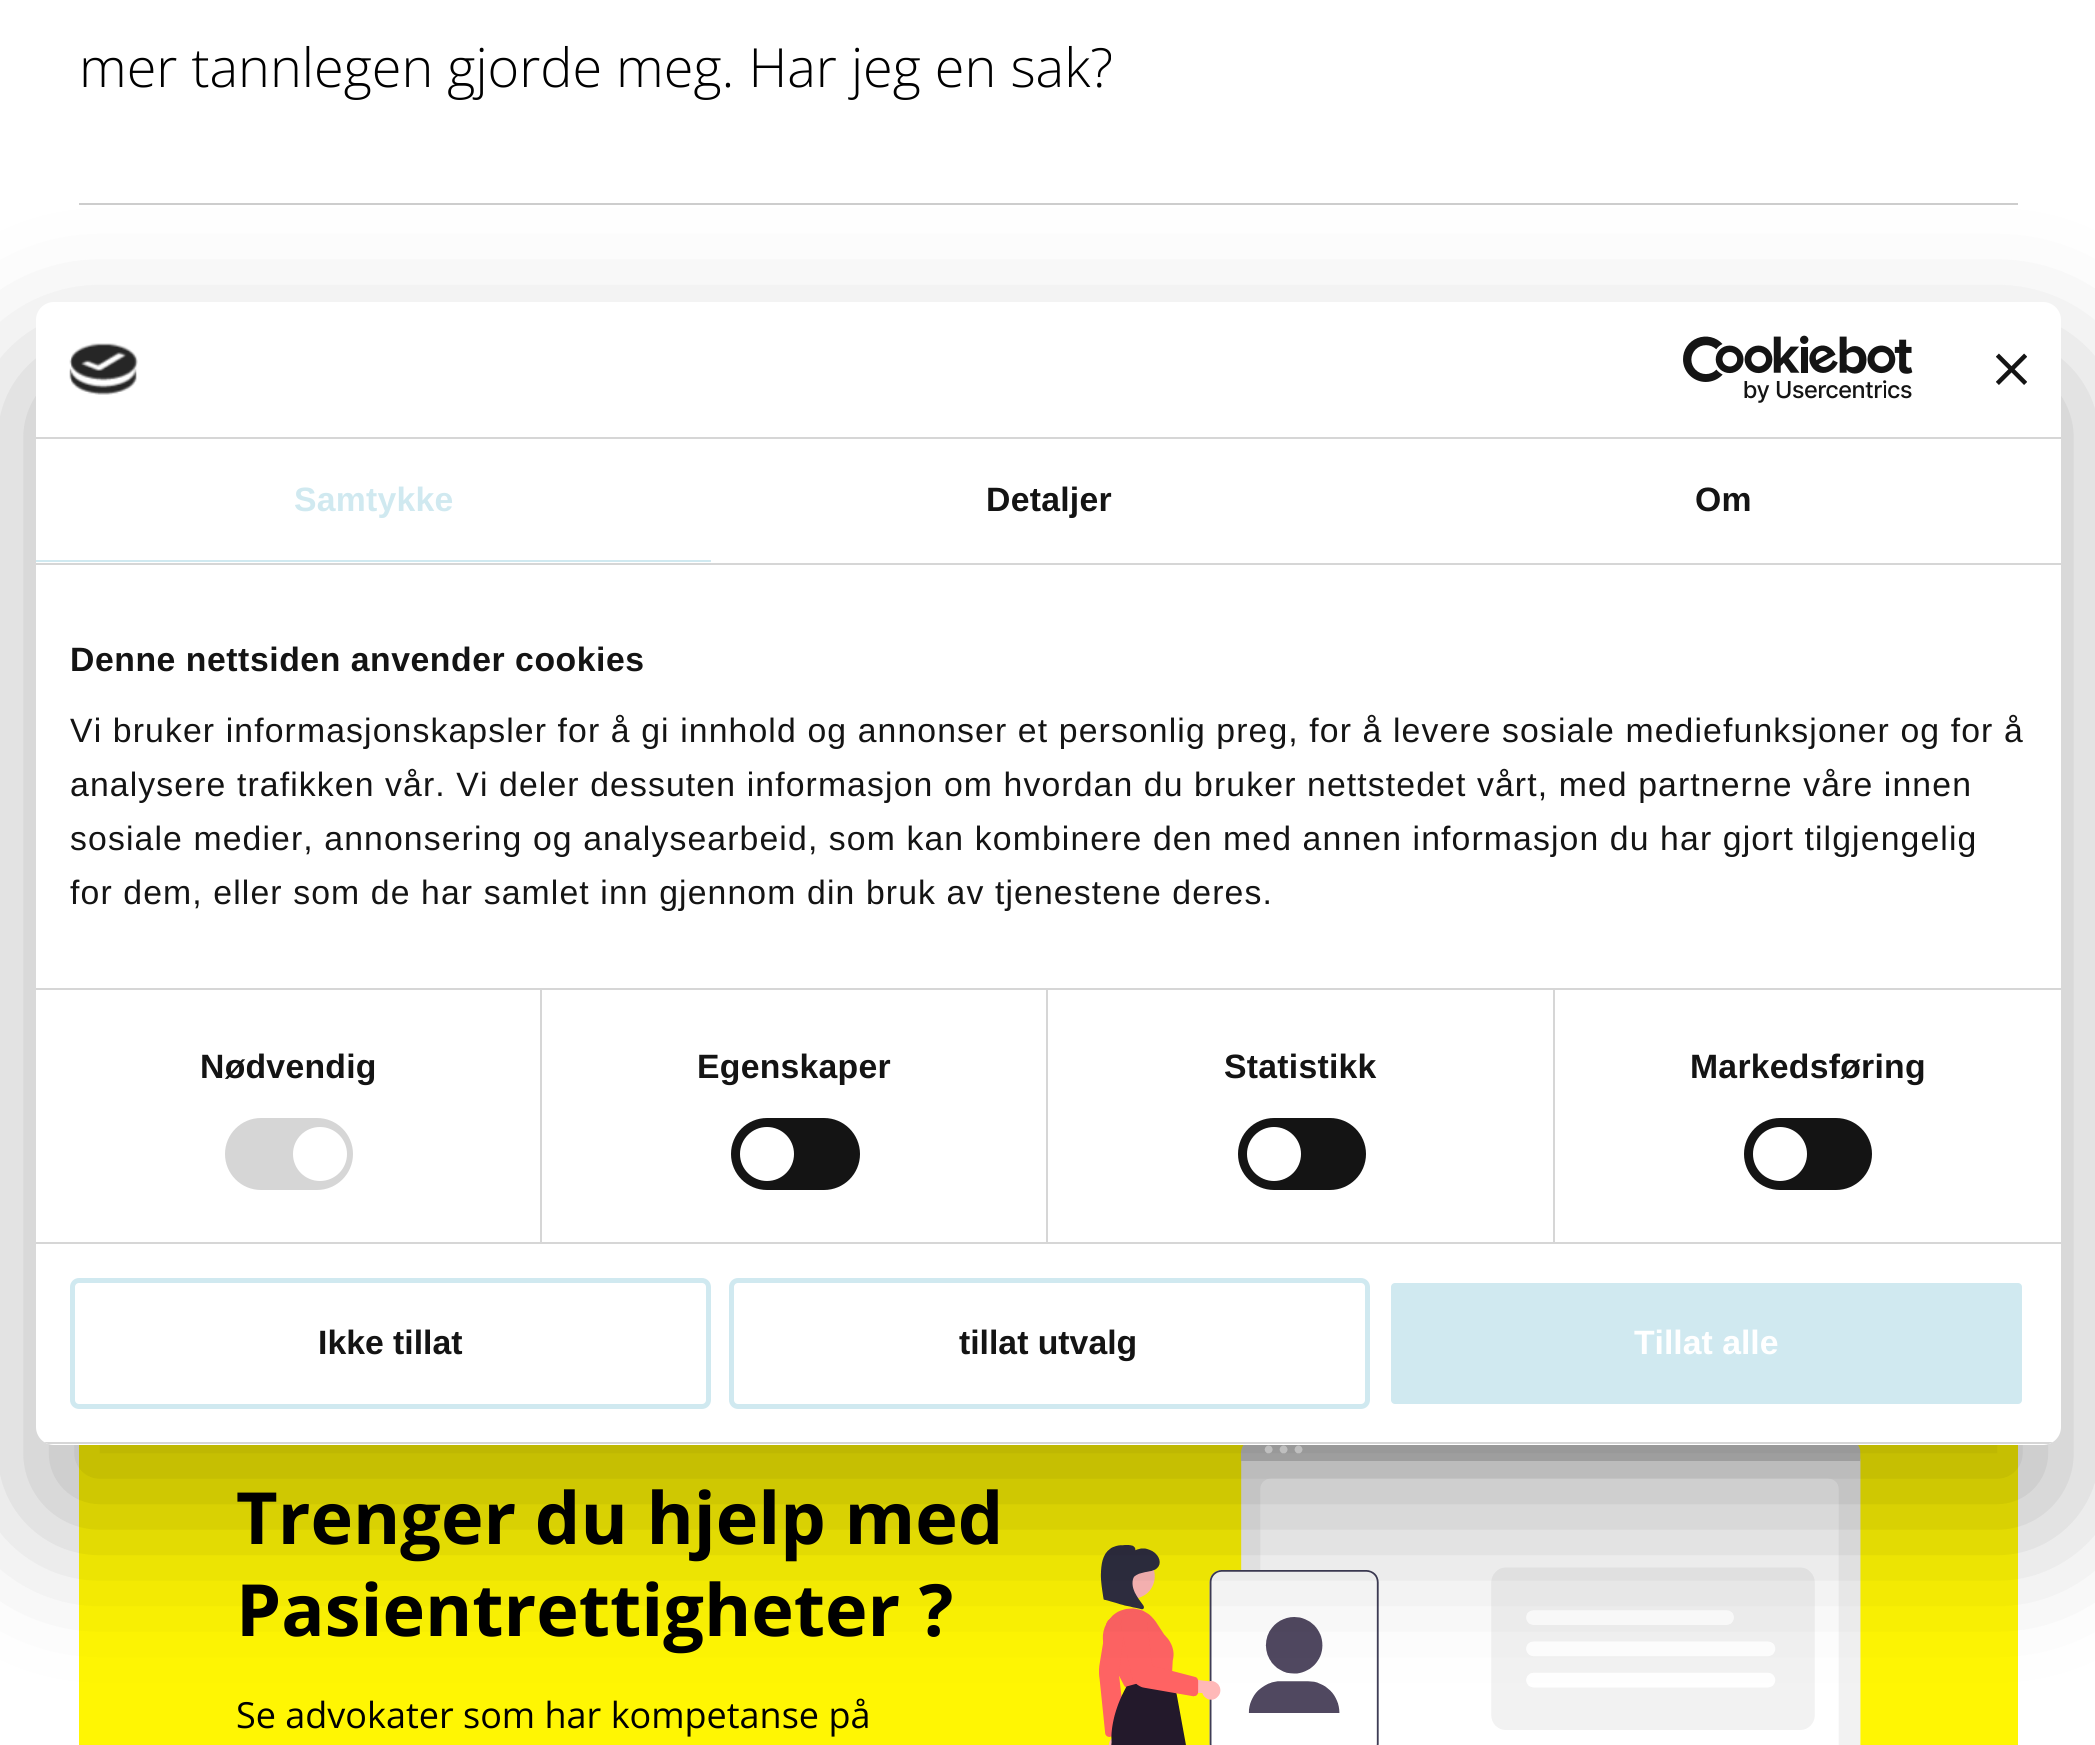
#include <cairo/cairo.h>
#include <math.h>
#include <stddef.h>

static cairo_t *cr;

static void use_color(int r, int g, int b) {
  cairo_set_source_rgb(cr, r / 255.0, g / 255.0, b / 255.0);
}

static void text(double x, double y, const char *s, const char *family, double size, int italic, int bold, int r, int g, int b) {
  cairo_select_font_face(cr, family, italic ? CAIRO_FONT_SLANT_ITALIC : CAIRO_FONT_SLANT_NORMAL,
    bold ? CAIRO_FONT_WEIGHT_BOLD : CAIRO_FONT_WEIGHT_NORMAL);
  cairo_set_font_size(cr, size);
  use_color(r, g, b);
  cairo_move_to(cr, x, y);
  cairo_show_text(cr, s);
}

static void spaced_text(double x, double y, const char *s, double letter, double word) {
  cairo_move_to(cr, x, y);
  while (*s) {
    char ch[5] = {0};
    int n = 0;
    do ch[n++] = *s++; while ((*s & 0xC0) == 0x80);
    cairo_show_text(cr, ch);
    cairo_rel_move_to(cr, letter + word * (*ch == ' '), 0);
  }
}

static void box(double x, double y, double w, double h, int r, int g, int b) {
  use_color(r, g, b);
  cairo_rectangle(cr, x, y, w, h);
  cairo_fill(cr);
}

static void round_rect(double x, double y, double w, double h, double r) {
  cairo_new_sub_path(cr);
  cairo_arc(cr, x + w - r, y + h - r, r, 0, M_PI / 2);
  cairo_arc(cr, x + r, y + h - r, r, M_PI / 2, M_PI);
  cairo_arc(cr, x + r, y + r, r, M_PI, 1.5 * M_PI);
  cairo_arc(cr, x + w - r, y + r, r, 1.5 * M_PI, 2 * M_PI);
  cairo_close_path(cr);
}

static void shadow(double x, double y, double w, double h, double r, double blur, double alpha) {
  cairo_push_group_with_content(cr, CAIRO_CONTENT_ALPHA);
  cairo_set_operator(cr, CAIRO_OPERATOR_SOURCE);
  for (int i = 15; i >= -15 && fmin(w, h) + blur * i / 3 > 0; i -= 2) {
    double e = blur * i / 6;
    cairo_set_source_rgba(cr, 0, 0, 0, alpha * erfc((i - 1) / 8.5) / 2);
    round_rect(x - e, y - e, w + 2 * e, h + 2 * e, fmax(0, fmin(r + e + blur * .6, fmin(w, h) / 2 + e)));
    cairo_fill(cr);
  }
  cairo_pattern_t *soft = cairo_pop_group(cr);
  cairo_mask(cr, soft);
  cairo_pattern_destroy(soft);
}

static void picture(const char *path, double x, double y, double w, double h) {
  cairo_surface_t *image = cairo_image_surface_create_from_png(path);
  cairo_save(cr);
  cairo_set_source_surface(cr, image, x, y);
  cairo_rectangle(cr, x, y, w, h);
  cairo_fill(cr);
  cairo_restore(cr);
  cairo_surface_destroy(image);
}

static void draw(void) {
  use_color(255, 255, 255);
  cairo_paint(cr);
  box(79, 203, 1939, 2, 205, 205, 205);
  box(79, 1445, 1939, 300, 255, 246, 3);
  picture("img_01.png", 1099, 1445, 762, 300);
  use_color(0, 0, 0);
  shadow(36, 374, 2025, 1143, 18, 76.5, 0.3);
  use_color(255, 255, 255);
  round_rect(36, 302, 2025, 1143, 18);
  cairo_fill(cr);
  box(36, 437, 2025, 2, 214, 214, 214);
  picture("img_02.png", 69, 343, 69, 52);
  picture("img_03.png", 1683, 335, 230, 68);
  picture("img_04.png", 1996, 353, 31, 32);
  box(36, 563, 2025, 2, 214, 214, 214);
  box(36, 560, 675, 2, 208, 233, 240);
  box(36, 988, 2025, 2, 214, 214, 214);
  box(36, 1242, 2025, 2, 214, 214, 214);
  box(540, 990, 2, 252, 214, 214, 214);
  round_rect(225, 1118, 128, 72, 36);
  cairo_fill(cr);
  use_color(255, 255, 255);
  cairo_arc(cr, 320, 1154, 27, 0, 2 * M_PI);
  cairo_fill(cr);
  box(1046, 990, 2, 252, 214, 214, 214);
  use_color(20, 20, 20);
  round_rect(731, 1118, 129, 72, 36);
  cairo_fill(cr);
  use_color(255, 255, 255);
  cairo_arc(cr, 767, 1154, 27, 0, 2 * M_PI);
  cairo_fill(cr);
  box(1553, 990, 2, 252, 214, 214, 214);
  use_color(20, 20, 20);
  round_rect(1238, 1118, 128, 72, 36);
  cairo_fill(cr);
  use_color(255, 255, 255);
  cairo_arc(cr, 1274, 1154, 27, 0, 2 * M_PI);
  cairo_fill(cr);
  use_color(20, 20, 20);
  round_rect(1744, 1118, 128, 72, 36);
  cairo_fill(cr);
  use_color(255, 255, 255);
  cairo_arc(cr, 1780, 1154, 27, 0, 2 * M_PI);
  cairo_fill(cr);
  cairo_save(cr);
  round_rect(36, 302, 2025, 1143, 18);
  cairo_clip(cr);
  box(36, 1442, 2025, 2, 214, 214, 214);
  cairo_restore(cr);
  round_rect(72.5, 1280.5, 636, 126, 6.5);
  use_color(208, 233, 240);
  cairo_set_line_width(cr, 5);
  cairo_stroke(cr);
  round_rect(731.5, 1280.5, 636, 126, 6.5);
  cairo_stroke(cr);
  round_rect(1388.5, 1280.5, 636, 126, 6.5);
  cairo_fill_preserve(cr);
  use_color(255, 255, 255);
  cairo_stroke(cr);
  text(79, 87, "mer tannlegen gjorde meg. Har jeg en sak?", "Open Sans Light", 54, 0, 0, 0, 0, 0);
  text(236, 1544, "Trenger du hjelp med", "Open Sans", 72, 0, 1, 0, 0, 0);
  text(236, 1636, "Pasientrettigheter ?", "Open Sans", 72, 0, 1, 0, 0, 0);
  text(236, 1728, "Se advokater som har kompetanse på", "Open Sans", 36, 0, 0, 0, 0, 0);
  cairo_select_font_face(cr, "Liberation Sans", CAIRO_FONT_SLANT_NORMAL, CAIRO_FONT_WEIGHT_BOLD);
  cairo_set_font_size(cr, 33.75);
  use_color(208, 233, 240);
  spaced_text(294, 511, "Samtykke", 0.25, 0);
  use_color(20, 20, 20);
  spaced_text(986, 511, "Detaljer", 0.25, 0);
  spaced_text(1695, 511, "Om", 0.25, 0);
  spaced_text(70, 671, "Denne nettsiden anvender cookies", 0.55, 0);
  cairo_select_font_face(cr, "Liberation Sans", CAIRO_FONT_SLANT_NORMAL, CAIRO_FONT_WEIGHT_NORMAL);
  spaced_text(70, 742, "Vi bruker informasjonskapsler for å gi innhold og annonser et personlig preg, for å levere sosiale mediefunksjoner og for å", 1.12, 0);
  spaced_text(70, 796, "analysere trafikken vår. Vi deler dessuten informasjon om hvordan du bruker nettstedet vårt, med partnerne våre innen", 1.12, 0);
  spaced_text(70, 850, "sosiale medier, annonsering og analysearbeid, som kan kombinere den med annen informasjon du har gjort tilgjengelig", 1.12, 0);
  spaced_text(70, 904, "for dem, eller som de har samlet inn gjennom din bruk av tjenestene deres.", 1.12, 0);
  cairo_select_font_face(cr, "Liberation Sans", CAIRO_FONT_SLANT_NORMAL, CAIRO_FONT_WEIGHT_BOLD);
  spaced_text(200, 1078, "Nødvendig", 0.25, 0);
  spaced_text(697, 1078, "Egenskaper", 0.25, 0);
  spaced_text(1224, 1078, "Statistikk", 0.25, 0);
  spaced_text(1690, 1078, "Markedsføring", 0.25, 0);
  text(318, 1354, "Ikke tillat", "Liberation Sans", 33.75, 0, 1, 20, 20, 20);
  text(959, 1354, "tillat utvalg", "Liberation Sans", 33.75, 0, 1, 20, 20, 20);
  text(1634, 1354, "Tillat alle", "Liberation Sans", 33.75, 0, 1, 255, 255, 255);
}

int main(void) {
  cairo_surface_t *surface = cairo_image_surface_create(CAIRO_FORMAT_RGB24, 2095, 1745);
  cr = cairo_create(surface);
  cairo_font_options_t *options = cairo_font_options_create();
  cairo_font_options_set_hint_metrics(options, CAIRO_HINT_METRICS_OFF);
  cairo_font_options_set_hint_style(options, CAIRO_HINT_STYLE_NONE);
  cairo_set_font_options(cr, options);
  cairo_set_miter_limit(cr, 4);
  draw();
  cairo_surface_write_to_png(surface, "out.png");
  cairo_font_options_destroy(options);
  cairo_destroy(cr);
  cairo_surface_destroy(surface);
  return 0;
}
